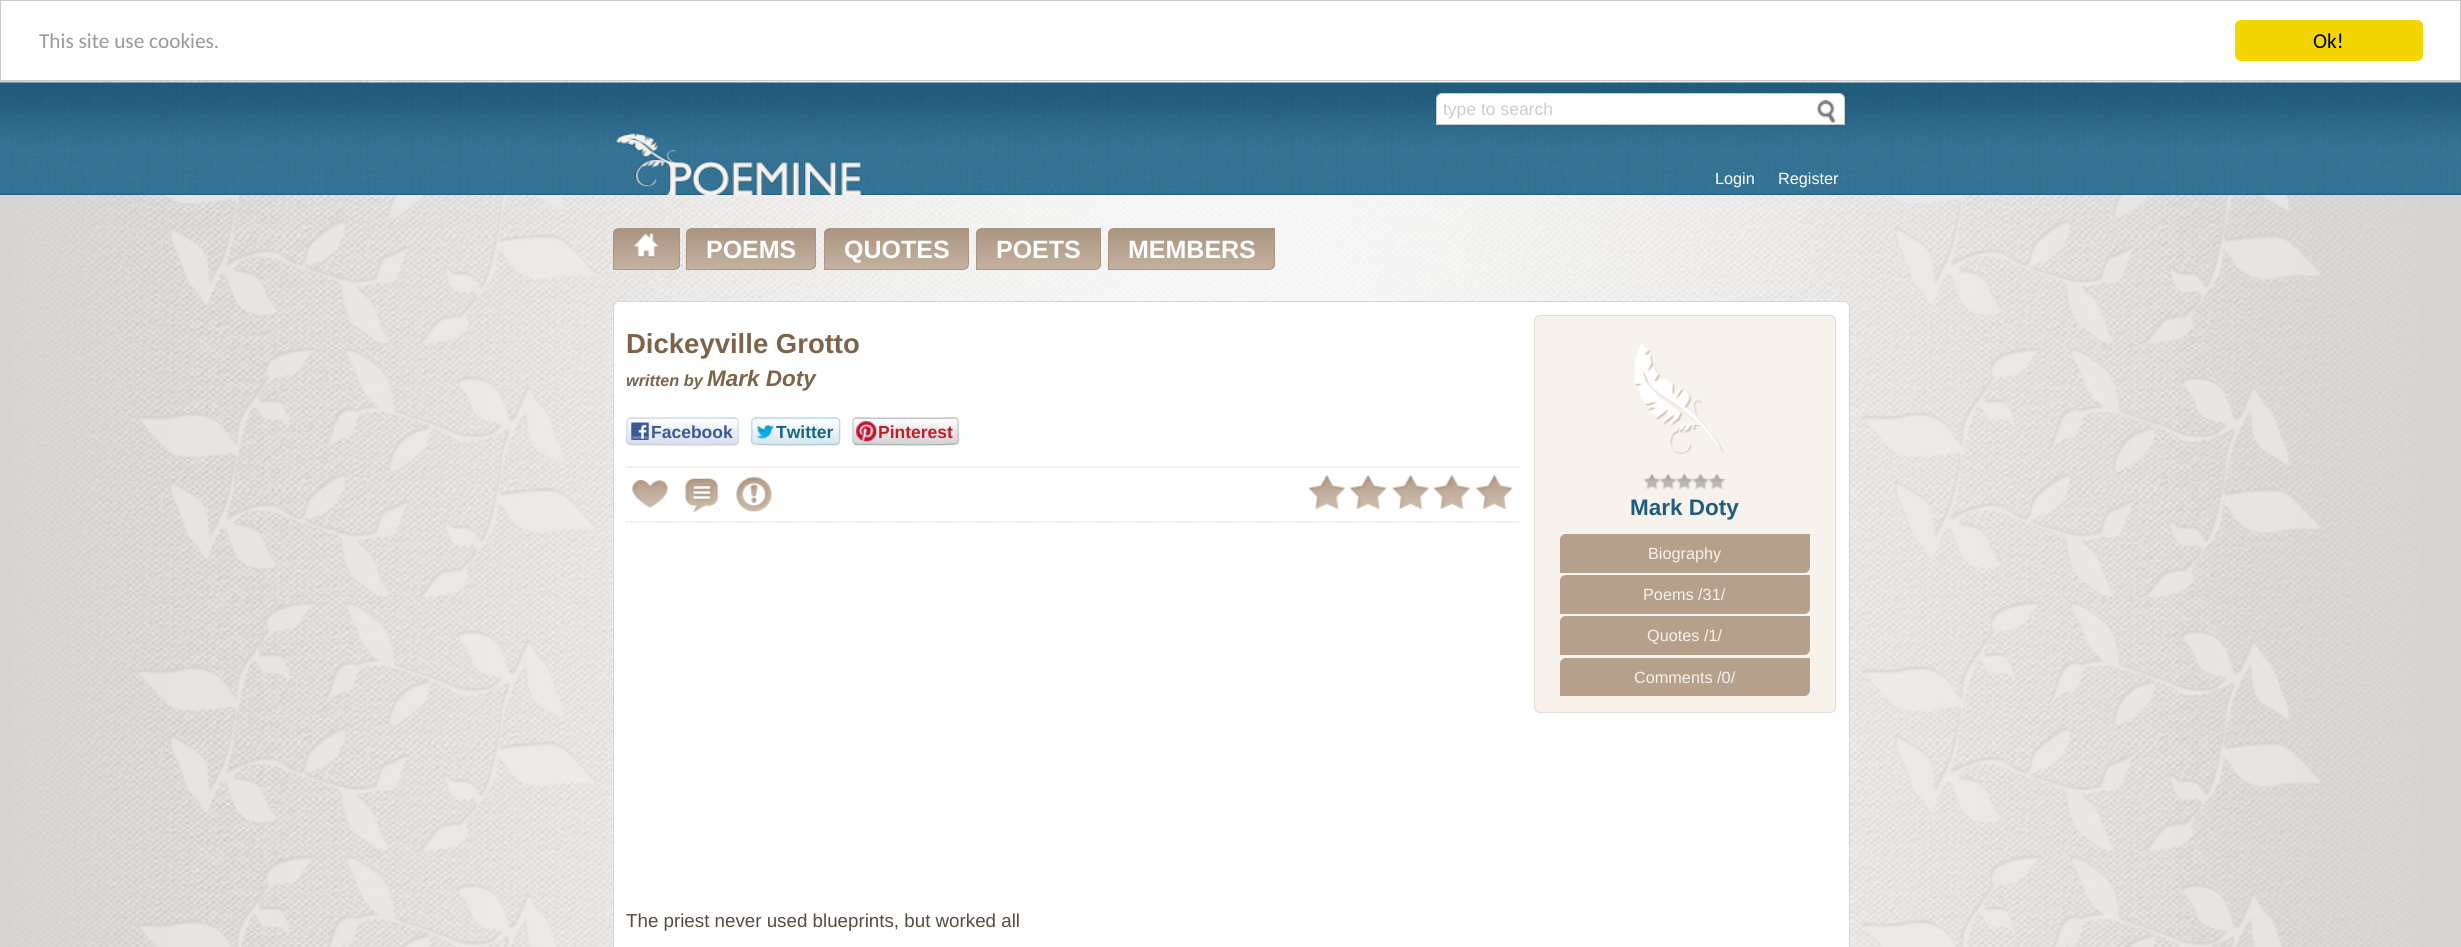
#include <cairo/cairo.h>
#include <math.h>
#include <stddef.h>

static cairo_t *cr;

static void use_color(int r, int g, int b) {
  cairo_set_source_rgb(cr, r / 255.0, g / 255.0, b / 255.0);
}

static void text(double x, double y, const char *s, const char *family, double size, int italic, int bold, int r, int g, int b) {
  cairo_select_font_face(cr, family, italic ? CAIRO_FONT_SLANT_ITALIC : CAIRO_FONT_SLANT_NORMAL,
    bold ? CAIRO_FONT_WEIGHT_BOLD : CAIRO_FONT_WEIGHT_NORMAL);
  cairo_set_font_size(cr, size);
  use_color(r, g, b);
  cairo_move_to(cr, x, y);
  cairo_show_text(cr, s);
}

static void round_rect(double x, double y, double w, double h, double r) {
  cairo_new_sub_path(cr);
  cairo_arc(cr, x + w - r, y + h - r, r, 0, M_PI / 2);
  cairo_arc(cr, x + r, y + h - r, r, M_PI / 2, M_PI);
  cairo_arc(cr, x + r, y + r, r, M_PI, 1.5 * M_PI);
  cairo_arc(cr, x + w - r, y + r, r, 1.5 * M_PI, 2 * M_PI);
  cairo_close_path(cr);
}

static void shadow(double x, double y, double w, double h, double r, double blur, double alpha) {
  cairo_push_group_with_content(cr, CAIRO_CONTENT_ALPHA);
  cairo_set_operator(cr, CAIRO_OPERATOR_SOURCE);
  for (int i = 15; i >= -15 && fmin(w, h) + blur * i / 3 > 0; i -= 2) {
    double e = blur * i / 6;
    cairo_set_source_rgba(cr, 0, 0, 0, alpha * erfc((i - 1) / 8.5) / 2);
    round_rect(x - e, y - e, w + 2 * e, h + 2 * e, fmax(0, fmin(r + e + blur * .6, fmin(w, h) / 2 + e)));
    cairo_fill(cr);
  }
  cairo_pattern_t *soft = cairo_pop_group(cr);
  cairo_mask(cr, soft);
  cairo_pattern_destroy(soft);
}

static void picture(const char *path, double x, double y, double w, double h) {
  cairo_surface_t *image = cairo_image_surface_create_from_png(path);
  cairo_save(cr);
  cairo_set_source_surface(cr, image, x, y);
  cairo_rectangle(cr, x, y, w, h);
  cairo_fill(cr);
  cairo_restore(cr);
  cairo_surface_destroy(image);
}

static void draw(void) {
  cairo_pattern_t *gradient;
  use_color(214, 212, 209);
  cairo_paint(cr);
  picture("img_01.png", 11, 81, 2411, 866);
  use_color(255, 255, 255);
  cairo_rectangle(cr, 0.5, 0.5, 2460, 80);
  cairo_fill_preserve(cr);
  use_color(204, 204, 204);
  cairo_set_line_width(cr, 1);
  cairo_stroke(cr);
  use_color(241, 214, 0);
  round_rect(2235, 20, 188, 41, 6);
  cairo_fill(cr);
  picture("img_02.png", 0, 82, 2461, 113);
  use_color(255, 255, 255);
  cairo_new_path(cr);
  cairo_move_to(cr, 1442, 93.5);
  cairo_line_to(cr, 1839, 93.5);
  cairo_curve_to(cr, 1842, 93.5, 1844.5, 96, 1844.5, 99);
  cairo_line_to(cr, 1844.5, 124.5);
  cairo_line_to(cr, 1436.5, 124.5);
  cairo_line_to(cr, 1436.5, 99);
  cairo_curve_to(cr, 1436.5, 96, 1439, 93.5, 1442, 93.5);
  cairo_close_path(cr);
  cairo_fill_preserve(cr);
  use_color(200, 200, 200);
  cairo_stroke(cr);
  picture("img_03.png", 1817, 100, 19, 23);
  picture("img_04.png", 615, 132, 248, 63);
  cairo_save(cr);
  cairo_new_path(cr);
  cairo_move_to(cr, 619, 228);
  cairo_line_to(cr, 680, 228);
  cairo_line_to(cr, 680, 264);
  cairo_curve_to(cr, 680, 267.5, 677.5, 270, 674, 270);
  cairo_line_to(cr, 613, 270);
  cairo_line_to(cr, 613, 234);
  cairo_curve_to(cr, 613, 230.5, 615.5, 228, 619, 228);
  cairo_close_path(cr);
  cairo_clip(cr);
  gradient = cairo_pattern_create_linear(646, 229, 646, 269);
  cairo_pattern_add_color_stop_rgba(gradient, 0, 0.663, 0.584, 0.506, 1);
  cairo_pattern_add_color_stop_rgba(gradient, 1, 0.769, 0.694, 0.624, 1);
  cairo_set_source(cr, gradient);
  cairo_pattern_destroy(gradient);
  cairo_rectangle(cr, 613, 229, 67, 40);
  cairo_fill(cr);
  cairo_restore(cr);
  cairo_new_path(cr);
  cairo_move_to(cr, 619, 228.5);
  cairo_line_to(cr, 679.5, 228.5);
  cairo_line_to(cr, 679.5, 264);
  cairo_curve_to(cr, 679.5, 267, 677, 269.5, 674, 269.5);
  cairo_line_to(cr, 613.5, 269.5);
  cairo_line_to(cr, 613.5, 234);
  cairo_curve_to(cr, 613.5, 231, 616, 228.5, 619, 228.5);
  cairo_close_path(cr);
  use_color(169, 149, 129);
  cairo_stroke(cr);
  picture("img_05.png", 633, 233, 26, 25);
  cairo_save(cr);
  cairo_new_path(cr);
  cairo_move_to(cr, 692, 228);
  cairo_line_to(cr, 816, 228);
  cairo_line_to(cr, 816, 264);
  cairo_curve_to(cr, 816, 267.5, 813.5, 270, 810, 270);
  cairo_line_to(cr, 686, 270);
  cairo_line_to(cr, 686, 234);
  cairo_curve_to(cr, 686, 230.5, 688.5, 228, 692, 228);
  cairo_close_path(cr);
  cairo_clip(cr);
  gradient = cairo_pattern_create_linear(751, 229, 751, 269);
  cairo_pattern_add_color_stop_rgba(gradient, 0, 0.663, 0.584, 0.506, 1);
  cairo_pattern_add_color_stop_rgba(gradient, 1, 0.769, 0.694, 0.624, 1);
  cairo_set_source(cr, gradient);
  cairo_pattern_destroy(gradient);
  cairo_rectangle(cr, 686, 229, 130, 40);
  cairo_fill(cr);
  cairo_restore(cr);
  cairo_new_path(cr);
  cairo_move_to(cr, 692, 228.5);
  cairo_line_to(cr, 815.5, 228.5);
  cairo_line_to(cr, 815.5, 264);
  cairo_curve_to(cr, 815.5, 267, 813, 269.5, 810, 269.5);
  cairo_line_to(cr, 686.5, 269.5);
  cairo_line_to(cr, 686.5, 234);
  cairo_curve_to(cr, 686.5, 231, 689, 228.5, 692, 228.5);
  cairo_close_path(cr);
  cairo_stroke(cr);
  cairo_save(cr);
  cairo_new_path(cr);
  cairo_move_to(cr, 830, 228);
  cairo_line_to(cr, 969, 228);
  cairo_line_to(cr, 969, 264);
  cairo_curve_to(cr, 969, 267.5, 966.5, 270, 963, 270);
  cairo_line_to(cr, 824, 270);
  cairo_line_to(cr, 824, 234);
  cairo_curve_to(cr, 824, 230.5, 826.5, 228, 830, 228);
  cairo_close_path(cr);
  cairo_clip(cr);
  gradient = cairo_pattern_create_linear(896, 229, 896, 269);
  cairo_pattern_add_color_stop_rgba(gradient, 0, 0.663, 0.584, 0.506, 1);
  cairo_pattern_add_color_stop_rgba(gradient, 1, 0.769, 0.694, 0.624, 1);
  cairo_set_source(cr, gradient);
  cairo_pattern_destroy(gradient);
  cairo_rectangle(cr, 824, 229, 145, 40);
  cairo_fill(cr);
  cairo_restore(cr);
  cairo_new_path(cr);
  cairo_move_to(cr, 830, 228.5);
  cairo_line_to(cr, 968.5, 228.5);
  cairo_line_to(cr, 968.5, 264);
  cairo_curve_to(cr, 968.5, 267, 966, 269.5, 963, 269.5);
  cairo_line_to(cr, 824.5, 269.5);
  cairo_line_to(cr, 824.5, 234);
  cairo_curve_to(cr, 824.5, 231, 827, 228.5, 830, 228.5);
  cairo_close_path(cr);
  cairo_stroke(cr);
  cairo_save(cr);
  cairo_new_path(cr);
  cairo_move_to(cr, 982, 228);
  cairo_line_to(cr, 1101, 228);
  cairo_line_to(cr, 1101, 264);
  cairo_curve_to(cr, 1101, 267.5, 1098.5, 270, 1095, 270);
  cairo_line_to(cr, 976, 270);
  cairo_line_to(cr, 976, 234);
  cairo_curve_to(cr, 976, 230.5, 978.5, 228, 982, 228);
  cairo_close_path(cr);
  cairo_clip(cr);
  gradient = cairo_pattern_create_linear(1039, 229, 1039, 269);
  cairo_pattern_add_color_stop_rgba(gradient, 0, 0.663, 0.584, 0.506, 1);
  cairo_pattern_add_color_stop_rgba(gradient, 1, 0.769, 0.694, 0.624, 1);
  cairo_set_source(cr, gradient);
  cairo_pattern_destroy(gradient);
  cairo_rectangle(cr, 976, 229, 125, 40);
  cairo_fill(cr);
  cairo_restore(cr);
  cairo_new_path(cr);
  cairo_move_to(cr, 982, 228.5);
  cairo_line_to(cr, 1100.5, 228.5);
  cairo_line_to(cr, 1100.5, 264);
  cairo_curve_to(cr, 1100.5, 267, 1098, 269.5, 1095, 269.5);
  cairo_line_to(cr, 976.5, 269.5);
  cairo_line_to(cr, 976.5, 234);
  cairo_curve_to(cr, 976.5, 231, 979, 228.5, 982, 228.5);
  cairo_close_path(cr);
  cairo_stroke(cr);
  cairo_save(cr);
  cairo_new_path(cr);
  cairo_move_to(cr, 1114, 228);
  cairo_line_to(cr, 1275, 228);
  cairo_line_to(cr, 1275, 264);
  cairo_curve_to(cr, 1275, 267.5, 1272.5, 270, 1269, 270);
  cairo_line_to(cr, 1108, 270);
  cairo_line_to(cr, 1108, 234);
  cairo_curve_to(cr, 1108, 230.5, 1110.5, 228, 1114, 228);
  cairo_close_path(cr);
  cairo_clip(cr);
  gradient = cairo_pattern_create_linear(1191, 229, 1191, 269);
  cairo_pattern_add_color_stop_rgba(gradient, 0, 0.663, 0.584, 0.506, 1);
  cairo_pattern_add_color_stop_rgba(gradient, 1, 0.769, 0.694, 0.624, 1);
  cairo_set_source(cr, gradient);
  cairo_pattern_destroy(gradient);
  cairo_rectangle(cr, 1108, 229, 167, 40);
  cairo_fill(cr);
  cairo_restore(cr);
  cairo_new_path(cr);
  cairo_move_to(cr, 1114, 228.5);
  cairo_line_to(cr, 1274.5, 228.5);
  cairo_line_to(cr, 1274.5, 264);
  cairo_curve_to(cr, 1274.5, 267, 1272, 269.5, 1269, 269.5);
  cairo_line_to(cr, 1108.5, 269.5);
  cairo_line_to(cr, 1108.5, 234);
  cairo_curve_to(cr, 1108.5, 231, 1111, 228.5, 1114, 228.5);
  cairo_close_path(cr);
  cairo_stroke(cr);
  use_color(255, 255, 255);
  round_rect(613.5, 301.5, 1236, 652, 5.5);
  cairo_fill_preserve(cr);
  use_color(224, 212, 199);
  cairo_stroke(cr);
  use_color(0, 0, 0);
  shadow(626, 419, 113, 27, 4, 0.5, 0.05);
  cairo_save(cr);
  round_rect(626, 418, 113, 27, 4);
  cairo_clip(cr);
  gradient = cairo_pattern_create_linear(683, 394, 683, 419);
  cairo_pattern_add_color_stop_rgba(gradient, 0, 1, 1, 1, 1);
  cairo_pattern_add_color_stop_rgba(gradient, 1, 0.847, 0.871, 0.957, 1);
  cairo_set_source(cr, gradient);
  cairo_pattern_destroy(gradient);
  cairo_rectangle(cr, 626, 418, 113, 1);
  cairo_fill(cr);
  gradient = cairo_pattern_create_linear(683, 419, 683, 444);
  cairo_pattern_add_color_stop_rgba(gradient, 0, 1, 1, 1, 1);
  cairo_pattern_add_color_stop_rgba(gradient, 1, 0.847, 0.871, 0.957, 1);
  cairo_set_source(cr, gradient);
  cairo_pattern_destroy(gradient);
  cairo_rectangle(cr, 626, 419, 113, 25);
  cairo_fill(cr);
  gradient = cairo_pattern_create_linear(683, 444, 683, 469);
  cairo_pattern_add_color_stop_rgba(gradient, 0, 1, 1, 1, 1);
  cairo_pattern_add_color_stop_rgba(gradient, 1, 0.847, 0.871, 0.957, 1);
  cairo_set_source(cr, gradient);
  cairo_pattern_destroy(gradient);
  cairo_rectangle(cr, 626, 444, 113, 1);
  cairo_fill(cr);
  cairo_restore(cr);
  cairo_new_path(cr);
  cairo_move_to(cr, 737, 443.5);
  cairo_line_to(cr, 736.5, 444);
  cairo_curve_to(cr, 734.5, 445.5, 657, 444.5, 647.5, 444.5);
  cairo_line_to(cr, 630, 444.5);
  cairo_line_to(cr, 628, 443.5);
  cairo_set_source_rgba(cr, 0.741, 0.761, 0.796, 0.8);
  cairo_set_line_width(cr, 1.2);
  cairo_stroke(cr);
  cairo_new_path(cr);
  cairo_move_to(cr, 628, 443.5);
  cairo_curve_to(cr, 625.5, 441.5, 627, 437, 627, 434.5);
  cairo_curve_to(cr, 627, 414, 624, 418, 647.5, 418);
  cairo_line_to(cr, 717.5, 418);
  cairo_curve_to(cr, 741, 418, 738, 414, 738, 434.5);
  cairo_curve_to(cr, 738, 437, 739.5, 441.5, 737, 443.5);
  cairo_set_source_rgba(cr, 0.792, 0.831, 0.906, 0.8);
  cairo_stroke(cr);
  picture("img_06.png", 631, 422, 18, 18);
  use_color(0, 0, 0);
  shadow(751, 419, 89, 27, 4, 0.5, 0.05);
  cairo_save(cr);
  round_rect(751, 418, 89, 27, 4);
  cairo_clip(cr);
  gradient = cairo_pattern_create_linear(796, 394, 796, 419);
  cairo_pattern_add_color_stop_rgba(gradient, 0, 1, 1, 1, 1);
  cairo_pattern_add_color_stop_rgba(gradient, 1, 0.835, 0.902, 0.937, 1);
  cairo_set_source(cr, gradient);
  cairo_pattern_destroy(gradient);
  cairo_rectangle(cr, 751, 418, 89, 1);
  cairo_fill(cr);
  gradient = cairo_pattern_create_linear(796, 419, 796, 444);
  cairo_pattern_add_color_stop_rgba(gradient, 0, 1, 1, 1, 1);
  cairo_pattern_add_color_stop_rgba(gradient, 1, 0.835, 0.902, 0.937, 1);
  cairo_set_source(cr, gradient);
  cairo_pattern_destroy(gradient);
  cairo_rectangle(cr, 751, 419, 89, 25);
  cairo_fill(cr);
  gradient = cairo_pattern_create_linear(796, 444, 796, 469);
  cairo_pattern_add_color_stop_rgba(gradient, 0, 1, 1, 1, 1);
  cairo_pattern_add_color_stop_rgba(gradient, 1, 0.835, 0.902, 0.937, 1);
  cairo_set_source(cr, gradient);
  cairo_pattern_destroy(gradient);
  cairo_rectangle(cr, 751, 444, 89, 1);
  cairo_fill(cr);
  cairo_restore(cr);
  cairo_new_path(cr);
  cairo_move_to(cr, 838.5, 443.5);
  cairo_line_to(cr, 836, 444.5);
  cairo_line_to(cr, 822.5, 444.5);
  cairo_curve_to(cr, 815, 444.5, 755, 445.5, 753, 443.5);
  cairo_set_source_rgba(cr, 0.62, 0.729, 0.8, 0.8);
  cairo_stroke(cr);
  cairo_new_path(cr);
  cairo_move_to(cr, 753, 443.5);
  cairo_curve_to(cr, 750.5, 441.5, 752, 437, 752, 434.5);
  cairo_curve_to(cr, 752, 415.5, 748.5, 418, 768.5, 418);
  cairo_line_to(cr, 822.5, 418);
  cairo_curve_to(cr, 843, 418, 839.5, 415.5, 839.5, 434.5);
  cairo_curve_to(cr, 839.5, 437, 840.5, 441.5, 838.5, 443.5);
  cairo_set_source_rgba(cr, 0.643, 0.8, 0.898, 0.8);
  cairo_stroke(cr);
  picture("img_07.png", 756, 425, 18, 14);
  use_color(0, 0, 0);
  shadow(853, 419, 106, 27, 4, 0.5, 0.05);
  cairo_save(cr);
  round_rect(853, 418, 106, 27, 4);
  cairo_clip(cr);
  gradient = cairo_pattern_create_linear(906, 394, 906, 419);
  cairo_pattern_add_color_stop_rgba(gradient, 0, 0.996, 0.996, 0.996, 1);
  cairo_pattern_add_color_stop_rgba(gradient, 1, 0.827, 0.827, 0.827, 1);
  cairo_set_source(cr, gradient);
  cairo_pattern_destroy(gradient);
  cairo_rectangle(cr, 853, 418, 106, 1);
  cairo_fill(cr);
  gradient = cairo_pattern_create_linear(906, 419, 906, 444);
  cairo_pattern_add_color_stop_rgba(gradient, 0, 0.996, 0.996, 0.996, 1);
  cairo_pattern_add_color_stop_rgba(gradient, 1, 0.827, 0.827, 0.827, 1);
  cairo_set_source(cr, gradient);
  cairo_pattern_destroy(gradient);
  cairo_rectangle(cr, 853, 419, 106, 25);
  cairo_fill(cr);
  gradient = cairo_pattern_create_linear(906, 444, 906, 469);
  cairo_pattern_add_color_stop_rgba(gradient, 0, 0.996, 0.996, 0.996, 1);
  cairo_pattern_add_color_stop_rgba(gradient, 1, 0.827, 0.827, 0.827, 1);
  cairo_set_source(cr, gradient);
  cairo_pattern_destroy(gradient);
  cairo_rectangle(cr, 853, 444, 106, 1);
  cairo_fill(cr);
  cairo_restore(cr);
  cairo_new_path(cr);
  cairo_move_to(cr, 957, 443.5);
  cairo_curve_to(cr, 955, 445.5, 881.5, 444.5, 872.5, 444.5);
  cairo_line_to(cr, 856, 444.5);
  cairo_line_to(cr, 854, 443.5);
  cairo_set_source_rgba(cr, 0.6, 0.6, 0.6, 0.8);
  cairo_stroke(cr);
  cairo_new_path(cr);
  cairo_move_to(cr, 854, 443.5);
  cairo_curve_to(cr, 852, 441.5, 853, 437, 853, 434.5);
  cairo_curve_to(cr, 853, 414, 850, 418, 872.5, 418);
  cairo_line_to(cr, 938.5, 418);
  cairo_curve_to(cr, 961, 418, 958, 414, 958, 434.5);
  cairo_curve_to(cr, 958, 437, 959.5, 441.5, 957, 443.5);
  cairo_set_source_rgba(cr, 0.729, 0.729, 0.729, 0.8);
  cairo_stroke(cr);
  picture("img_08.png", 856, 421, 21, 21);
  cairo_new_path(cr);
  cairo_move_to(cr, 626, 467);
  cairo_line_to(cr, 1521, 467);
  use_color(224, 212, 199);
  cairo_set_dash(cr, (double[]){1.25, 1.25}, 2, 0);
  cairo_stroke(cr);
  picture("img_09.png", 632, 479, 36, 29);
  picture("img_10.png", 684, 478, 35, 35);
  picture("img_11.png", 736, 476, 36, 36);
  picture("img_12.png", 1308, 475, 38, 34);
  picture("img_13.png", 1350, 475, 37, 34);
  picture("img_14.png", 1392, 475, 37, 34);
  picture("img_12.png", 1433, 475, 38, 34);
  picture("img_15.png", 1476, 475, 37, 34);
  cairo_new_path(cr);
  cairo_move_to(cr, 626, 522);
  cairo_line_to(cr, 1521, 522);
  cairo_stroke(cr);
  use_color(247, 242, 236);
  round_rect(1534.5, 315.5, 301, 397, 5.5);
  cairo_fill_preserve(cr);
  use_color(230, 220, 208);
  cairo_set_line_width(cr, 1);
  cairo_set_dash(cr, NULL, 0, 0);
  cairo_stroke(cr);
  picture("img_16.png", 1634, 344, 90, 110);
  picture("img_17.png", 1643, 473, 17, 16);
  picture("img_18.png", 1660, 473, 17, 16);
  picture("img_19.png", 1676, 473, 17, 16);
  picture("img_20.png", 1692, 473, 17, 16);
  picture("img_21.png", 1708, 473, 17, 16);
  use_color(181, 160, 140);
  cairo_new_path(cr);
  cairo_move_to(cr, 1566, 534);
  cairo_line_to(cr, 1810, 534);
  cairo_line_to(cr, 1810, 567);
  cairo_curve_to(cr, 1810, 570.5, 1807.5, 573, 1804, 573);
  cairo_line_to(cr, 1560, 573);
  cairo_line_to(cr, 1560, 540);
  cairo_curve_to(cr, 1560, 536.5, 1562.5, 534, 1566, 534);
  cairo_close_path(cr);
  cairo_fill(cr);
  cairo_new_path(cr);
  cairo_move_to(cr, 1566, 575);
  cairo_line_to(cr, 1810, 575);
  cairo_line_to(cr, 1810, 608);
  cairo_curve_to(cr, 1810, 611.5, 1807.5, 614, 1804, 614);
  cairo_line_to(cr, 1560, 614);
  cairo_line_to(cr, 1560, 581);
  cairo_curve_to(cr, 1560, 577.5, 1562.5, 575, 1566, 575);
  cairo_close_path(cr);
  cairo_fill(cr);
  cairo_new_path(cr);
  cairo_move_to(cr, 1566, 616);
  cairo_line_to(cr, 1810, 616);
  cairo_line_to(cr, 1810, 649);
  cairo_curve_to(cr, 1810, 652.5, 1807.5, 655, 1804, 655);
  cairo_line_to(cr, 1560, 655);
  cairo_line_to(cr, 1560, 622);
  cairo_curve_to(cr, 1560, 618.5, 1562.5, 616, 1566, 616);
  cairo_close_path(cr);
  cairo_fill(cr);
  cairo_new_path(cr);
  cairo_move_to(cr, 1566, 658);
  cairo_line_to(cr, 1810, 658);
  cairo_line_to(cr, 1810, 690);
  cairo_curve_to(cr, 1810, 693.5, 1807.5, 696, 1804, 696);
  cairo_line_to(cr, 1560, 696);
  cairo_line_to(cr, 1560, 664);
  cairo_curve_to(cr, 1560, 660.5, 1562.5, 658, 1566, 658);
  cairo_close_path(cr);
  cairo_fill(cr);
  text(39, 48, "This site use cookies.", "Carlito", 21.25, 0, 0, 153, 153, 153);
  text(2313, 48, "Ok!", "Carlito", 21.25, 0, 0, 0, 0, 0);
  text(1443, 115, "type to search", "Liberation Sans", 17.5, 0, 0, 204, 204, 204);
  text(1715, 184, "Login", "Liberation Sans", 16.25, 0, 0, 255, 255, 255);
  text(1778, 184, "Register", "Liberation Sans", 16.25, 0, 0, 255, 255, 255);
  text(706, 258, "POEMS", "Liberation Sans", 25, 0, 1, 255, 255, 255);
  text(844, 258, "QUOTES", "Liberation Sans", 25, 0, 1, 255, 255, 255);
  text(996, 258, "POETS", "Liberation Sans", 25, 0, 1, 255, 255, 255);
  text(1128, 258, "MEMBERS", "Liberation Sans", 25, 0, 1, 255, 255, 255);
  text(626, 353, "Dickeyville Grotto", "Liberation Sans", 27.5, 0, 1, 126, 99, 74);
  text(626, 386, "written by", "Liberation Sans", 16.25, 1, 1, 126, 99, 74);
  text(707, 386, "Mark Doty", "Liberation Sans", 22.5, 1, 1, 126, 99, 74);
  text(651, 438, "Facebook", "Liberation Sans", 17.5, 0, 1, 59, 89, 152);
  text(776, 438, "Twitter", "Liberation Sans", 17.5, 0, 1, 24, 100, 135);
  text(878, 438, "Pinterest", "Liberation Sans", 17.5, 0, 1, 199, 26, 40);
  text(626, 927, "The priest never used blueprints, but worked all", "Liberation Sans", 18.75, 0, 0, 86, 76, 66);
  text(1630, 515, "Mark Doty", "Liberation Sans", 22.5, 0, 1, 32, 92, 125);
  text(1648, 559, "Biography", "Liberation Sans", 16.25, 0, 0, 247, 242, 236);
  text(1643, 600, "Poems /31/", "Liberation Sans", 16.25, 0, 0, 247, 242, 236);
  text(1647, 641, "Quotes /1/", "Liberation Sans", 16.25, 0, 0, 247, 242, 236);
  text(1634, 683, "Comments /0/", "Liberation Sans", 16.25, 0, 0, 247, 242, 236);
}

int main(void) {
  cairo_surface_t *surface = cairo_image_surface_create(CAIRO_FORMAT_RGB24, 2461, 947);
  cr = cairo_create(surface);
  cairo_font_options_t *options = cairo_font_options_create();
  cairo_font_options_set_hint_metrics(options, CAIRO_HINT_METRICS_OFF);
  cairo_font_options_set_hint_style(options, CAIRO_HINT_STYLE_NONE);
  cairo_set_font_options(cr, options);
  cairo_set_miter_limit(cr, 4);
  draw();
  cairo_surface_write_to_png(surface, "out.png");
  cairo_font_options_destroy(options);
  cairo_destroy(cr);
  cairo_surface_destroy(surface);
  return 0;
}
